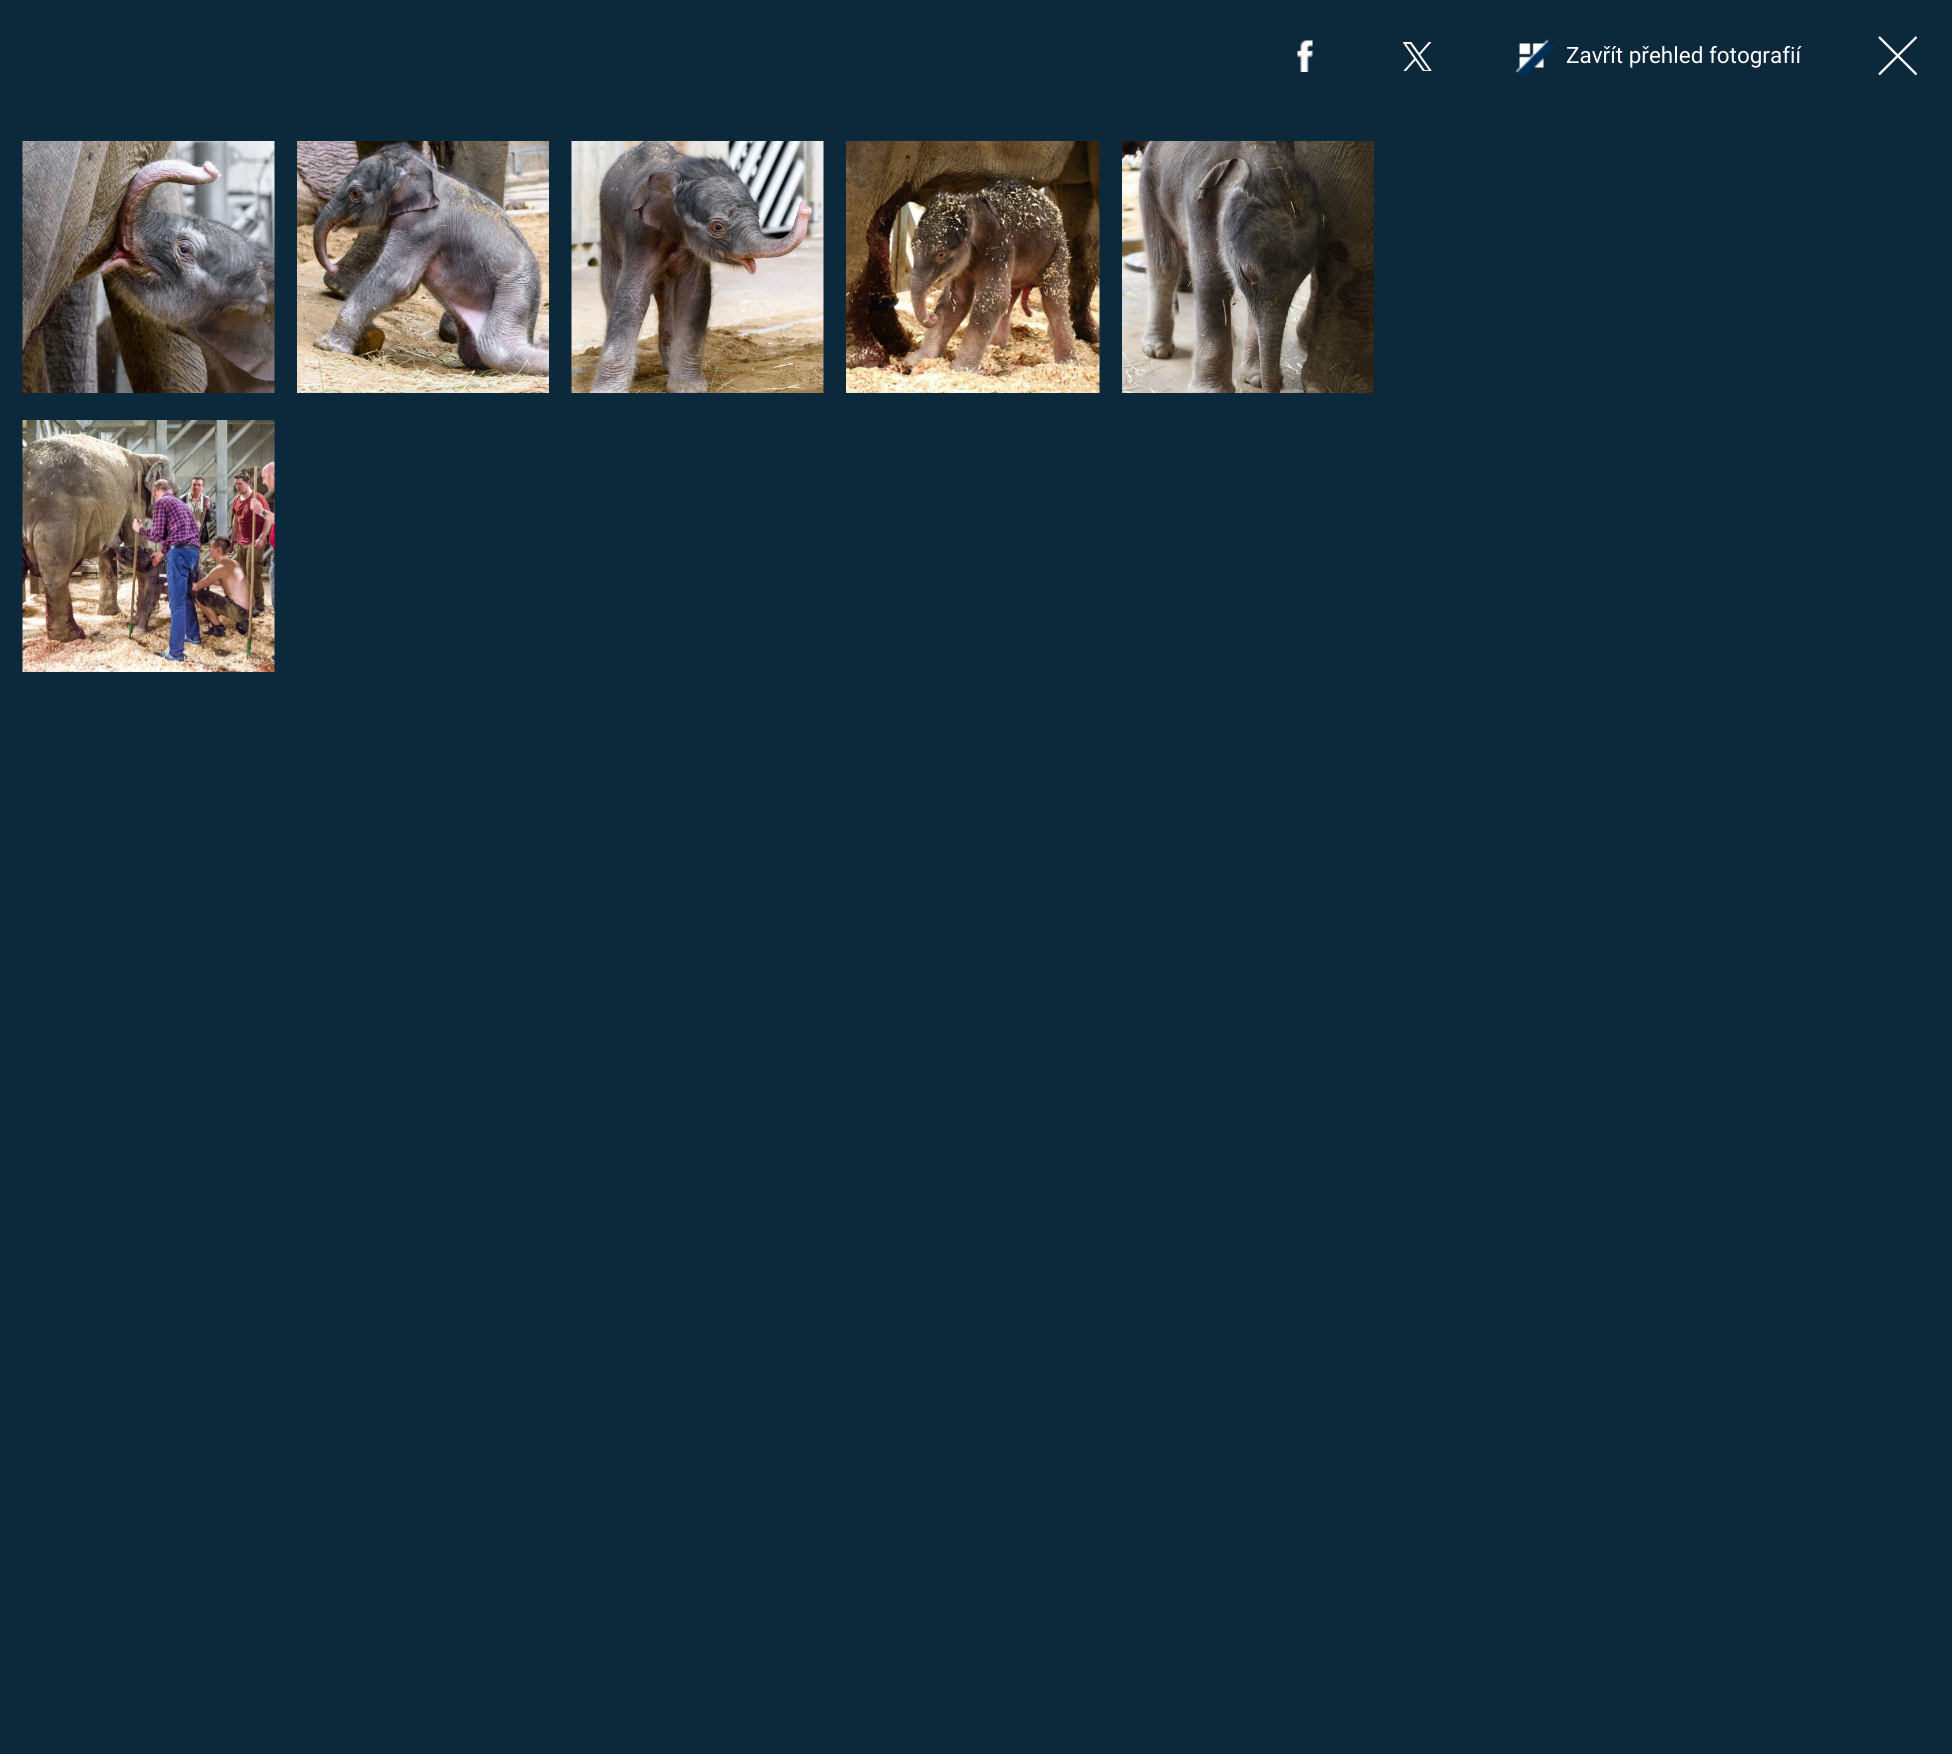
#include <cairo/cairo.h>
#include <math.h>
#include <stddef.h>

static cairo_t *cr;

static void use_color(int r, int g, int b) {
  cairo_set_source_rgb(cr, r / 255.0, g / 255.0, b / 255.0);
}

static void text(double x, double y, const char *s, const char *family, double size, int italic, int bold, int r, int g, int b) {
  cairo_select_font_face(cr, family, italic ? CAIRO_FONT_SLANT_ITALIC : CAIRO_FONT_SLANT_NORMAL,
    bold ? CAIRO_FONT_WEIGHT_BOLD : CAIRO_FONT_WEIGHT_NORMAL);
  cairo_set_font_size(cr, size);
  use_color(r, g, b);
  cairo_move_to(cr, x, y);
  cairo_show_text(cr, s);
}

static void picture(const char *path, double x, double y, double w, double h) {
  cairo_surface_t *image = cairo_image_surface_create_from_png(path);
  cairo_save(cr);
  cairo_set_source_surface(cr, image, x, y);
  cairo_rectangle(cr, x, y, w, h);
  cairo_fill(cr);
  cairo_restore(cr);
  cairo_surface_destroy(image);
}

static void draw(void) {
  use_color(12, 41, 60);
  cairo_paint(cr);
  picture("img_01.png", 1297, 40, 16, 32);
  picture("img_02.png", 1403, 42, 29, 29);
  picture("img_03.png", 1515, 39, 40, 40);
  cairo_new_path(cr);
  cairo_move_to(cr, 1879, 37);
  cairo_line_to(cr, 1916.5, 74.5);
  cairo_move_to(cr, 1916.5, 37);
  cairo_line_to(cr, 1879, 74.5);
  use_color(255, 255, 255);
  cairo_set_line_width(cr, 2.3);
  cairo_stroke(cr);
  picture("img_04.png", 22, 141, 253, 252);
  picture("img_05.png", 297, 141, 252, 252);
  picture("img_06.png", 571, 141, 253, 252);
  picture("img_07.png", 846, 141, 254, 252);
  picture("img_08.png", 1122, 141, 252, 252);
  picture("img_09.png", 22, 420, 253, 252);
  text(1566, 63, "Zavřít přehled fotografií", "Roboto", 22.5, 0, 0, 255, 255, 255);
}

int main(void) {
  cairo_surface_t *surface = cairo_image_surface_create(CAIRO_FORMAT_RGB24, 1952, 1754);
  cr = cairo_create(surface);
  cairo_font_options_t *options = cairo_font_options_create();
  cairo_font_options_set_hint_metrics(options, CAIRO_HINT_METRICS_OFF);
  cairo_font_options_set_hint_style(options, CAIRO_HINT_STYLE_NONE);
  cairo_set_font_options(cr, options);
  cairo_set_miter_limit(cr, 4);
  draw();
  cairo_surface_write_to_png(surface, "out.png");
  cairo_font_options_destroy(options);
  cairo_destroy(cr);
  cairo_surface_destroy(surface);
  return 0;
}
